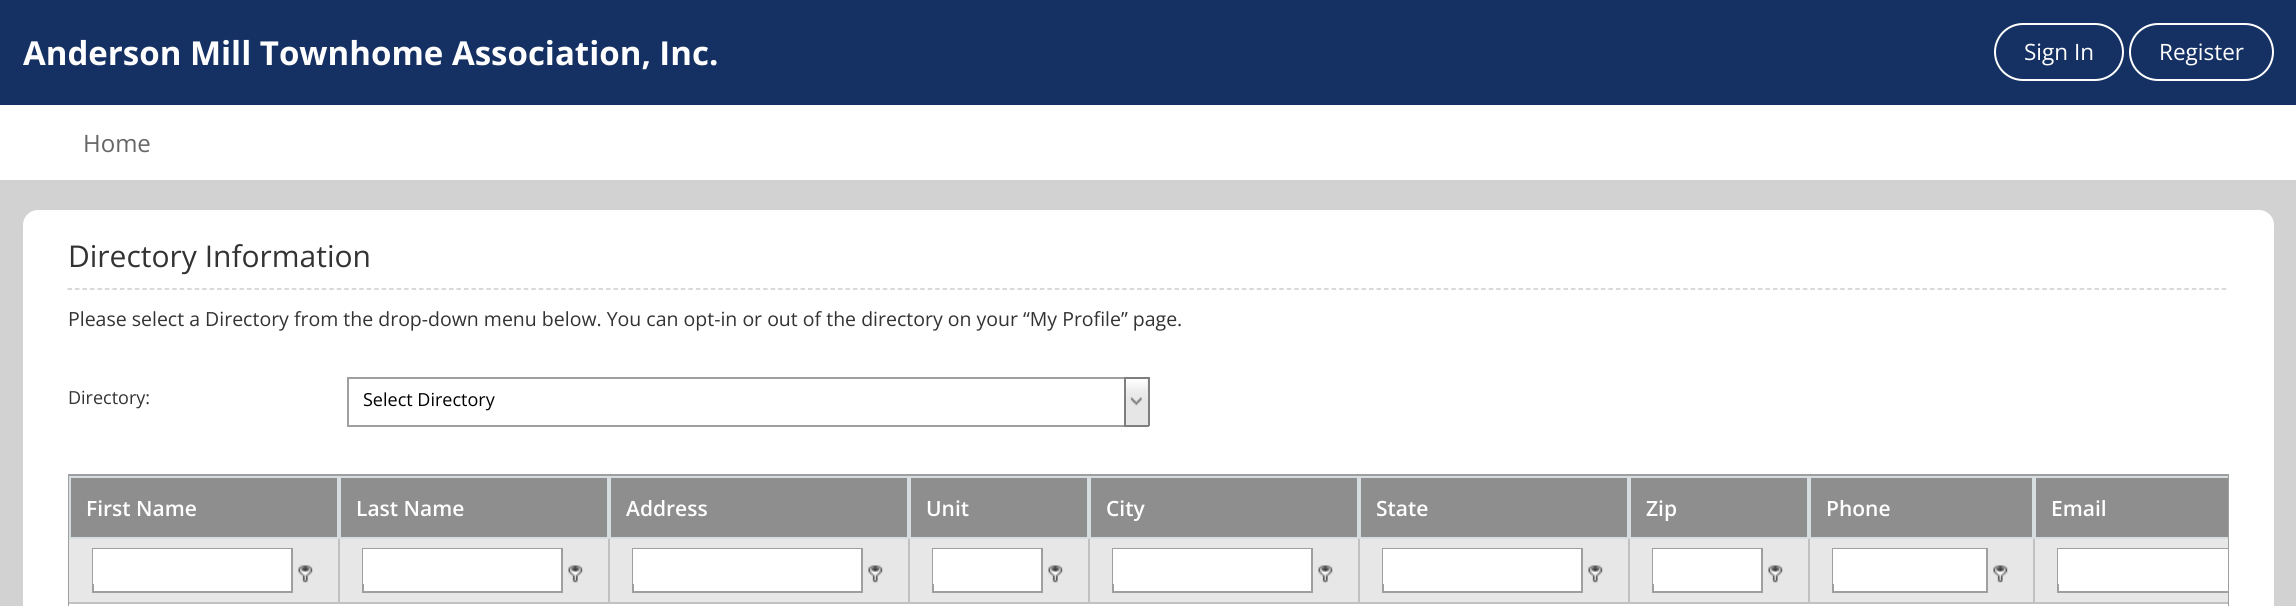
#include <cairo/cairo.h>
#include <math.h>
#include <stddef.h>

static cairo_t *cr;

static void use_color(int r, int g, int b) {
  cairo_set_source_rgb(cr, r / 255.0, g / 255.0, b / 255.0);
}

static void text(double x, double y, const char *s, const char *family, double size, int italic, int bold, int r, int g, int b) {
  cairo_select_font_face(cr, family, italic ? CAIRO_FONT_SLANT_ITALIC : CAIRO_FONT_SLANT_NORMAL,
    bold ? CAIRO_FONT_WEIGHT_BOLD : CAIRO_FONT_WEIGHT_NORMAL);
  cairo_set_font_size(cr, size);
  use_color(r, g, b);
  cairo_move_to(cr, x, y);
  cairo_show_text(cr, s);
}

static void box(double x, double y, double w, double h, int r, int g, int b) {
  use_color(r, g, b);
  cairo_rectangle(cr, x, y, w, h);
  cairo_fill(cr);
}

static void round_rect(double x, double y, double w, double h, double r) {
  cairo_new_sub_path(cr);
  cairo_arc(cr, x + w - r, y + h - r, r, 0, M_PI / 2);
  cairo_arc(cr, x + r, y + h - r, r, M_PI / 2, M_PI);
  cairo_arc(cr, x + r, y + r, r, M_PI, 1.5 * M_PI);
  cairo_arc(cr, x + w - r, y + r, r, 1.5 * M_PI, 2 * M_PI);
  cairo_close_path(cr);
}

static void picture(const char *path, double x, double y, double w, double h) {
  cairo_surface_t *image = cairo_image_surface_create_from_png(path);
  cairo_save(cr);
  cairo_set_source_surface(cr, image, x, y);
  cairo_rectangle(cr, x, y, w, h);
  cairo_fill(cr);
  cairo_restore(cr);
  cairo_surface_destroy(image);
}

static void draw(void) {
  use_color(210, 210, 210);
  cairo_paint(cr);
  box(0, 0, 2296, 105, 21, 49, 99);
  round_rect(1995, 24, 128, 56, 28);
  use_color(255, 255, 255);
  cairo_stroke(cr);
  round_rect(2130, 24, 143, 56, 28);
  cairo_stroke(cr);
  box(0, 105, 2296, 75, 255, 255, 255);
  round_rect(23, 210, 2251, 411, 15);
  cairo_fill(cr);
  cairo_new_path(cr);
  cairo_move_to(cr, 67.5, 289);
  cairo_line_to(cr, 2229, 289);
  use_color(204, 204, 204);
  cairo_set_line_width(cr, 1.5);
  cairo_set_dash(cr, (double[]){4.5, 2.98}, 2, 0);
  cairo_stroke(cr);
  box(347, 377, 777, 2, 159, 159, 159);
  box(347, 425, 777, 2, 159, 159, 159);
  box(347, 377, 2, 49, 159, 159, 159);
  box(1126, 379, 22, 46, 230, 230, 230);
  picture("img_01.png", 1123, 379, 25, 23);
  box(1123, 382, 1, 20, 255, 255, 255);
  box(1124, 377, 25, 2, 127, 127, 127);
  box(1148, 377, 2, 49, 127, 127, 127);
  box(1124, 425, 25, 2, 127, 127, 127);
  box(1124, 377, 2, 49, 127, 127, 127);
  picture("img_02.png", 1130, 397, 12, 9);
  cairo_rectangle(cr, 69, 475, 2159, 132);
  use_color(159, 159, 159);
  cairo_set_line_width(cr, 2);
  cairo_set_dash(cr, NULL, 0, 0);
  cairo_stroke(cr);
  box(69, 604, 2159, 2, 255, 255, 255);
  use_color(142, 142, 142);
  cairo_rectangle(cr, 70, 477, 268, 61);
  cairo_fill_preserve(cr);
  use_color(214, 221, 225);
  cairo_stroke(cr);
  use_color(142, 142, 142);
  cairo_rectangle(cr, 340, 477, 268, 61);
  cairo_fill_preserve(cr);
  use_color(214, 221, 225);
  cairo_stroke(cr);
  use_color(142, 142, 142);
  cairo_rectangle(cr, 610, 477, 298, 61);
  cairo_fill_preserve(cr);
  use_color(214, 221, 225);
  cairo_stroke(cr);
  use_color(142, 142, 142);
  cairo_rectangle(cr, 910, 477, 178, 61);
  cairo_fill_preserve(cr);
  use_color(214, 221, 225);
  cairo_stroke(cr);
  use_color(142, 142, 142);
  cairo_rectangle(cr, 1090, 477, 268, 61);
  cairo_fill_preserve(cr);
  use_color(214, 221, 225);
  cairo_stroke(cr);
  use_color(142, 142, 142);
  cairo_rectangle(cr, 1360, 477, 268, 61);
  cairo_fill_preserve(cr);
  use_color(214, 221, 225);
  cairo_stroke(cr);
  use_color(142, 142, 142);
  cairo_rectangle(cr, 1630, 477, 178, 61);
  cairo_fill_preserve(cr);
  use_color(214, 221, 225);
  cairo_stroke(cr);
  use_color(142, 142, 142);
  cairo_rectangle(cr, 1810, 477, 223, 61);
  cairo_fill_preserve(cr);
  use_color(214, 221, 225);
  cairo_stroke(cr);
  box(2036, 478, 192, 59, 142, 142, 142);
  cairo_save(cr);
  cairo_rectangle(cr, 69, 476, 2159, 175);
  cairo_clip(cr);
  cairo_rectangle(cr, 2035, 477, 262, 61);
  use_color(214, 221, 225);
  cairo_stroke(cr);
  cairo_restore(cr);
  box(69, 539, 2159, 63, 231, 231, 231);
  box(338, 539, 2, 64, 193, 193, 193);
  box(69, 602, 270, 2, 193, 193, 193);
  box(94, 584, 197, 7, 255, 255, 255);
  cairo_rectangle(cr, 93, 549, 199, 43);
  use_color(159, 159, 159);
  cairo_stroke(cr);
  box(93, 549, 198, 35, 255, 255, 255);
  picture("img_03.png", 298, 565, 15, 18);
  box(608, 539, 2, 64, 193, 193, 193);
  box(339, 602, 270, 2, 193, 193, 193);
  box(364, 584, 197, 7, 255, 255, 255);
  cairo_rectangle(cr, 363, 549, 199, 43);
  use_color(159, 159, 159);
  cairo_stroke(cr);
  box(363, 549, 198, 35, 255, 255, 255);
  picture("img_03.png", 568, 565, 15, 18);
  box(908, 539, 2, 64, 193, 193, 193);
  box(609, 602, 300, 2, 193, 193, 193);
  box(634, 584, 227, 7, 255, 255, 255);
  cairo_rectangle(cr, 633, 549, 229, 43);
  use_color(159, 159, 159);
  cairo_stroke(cr);
  box(633, 549, 228, 35, 255, 255, 255);
  picture("img_04.png", 868, 565, 15, 18);
  box(1088, 539, 2, 64, 193, 193, 193);
  box(909, 602, 180, 2, 193, 193, 193);
  box(934, 584, 107, 7, 255, 255, 255);
  cairo_rectangle(cr, 933, 549, 109, 43);
  use_color(159, 159, 159);
  cairo_stroke(cr);
  box(933, 549, 108, 35, 255, 255, 255);
  picture("img_03.png", 1048, 565, 15, 18);
  box(1358, 539, 2, 64, 193, 193, 193);
  box(1089, 602, 270, 2, 193, 193, 193);
  box(1114, 584, 197, 7, 255, 255, 255);
  cairo_rectangle(cr, 1113, 549, 199, 43);
  use_color(159, 159, 159);
  cairo_stroke(cr);
  box(1113, 549, 198, 35, 255, 255, 255);
  picture("img_03.png", 1318, 565, 15, 18);
  box(1628, 539, 2, 64, 193, 193, 193);
  box(1359, 602, 270, 2, 193, 193, 193);
  box(1384, 584, 197, 7, 255, 255, 255);
  cairo_rectangle(cr, 1383, 549, 199, 43);
  use_color(159, 159, 159);
  cairo_stroke(cr);
  box(1383, 549, 198, 35, 255, 255, 255);
  picture("img_04.png", 1588, 565, 15, 18);
  box(1808, 539, 2, 64, 193, 193, 193);
  box(1629, 602, 180, 2, 193, 193, 193);
  box(1654, 584, 107, 7, 255, 255, 255);
  cairo_rectangle(cr, 1653, 549, 109, 43);
  use_color(159, 159, 159);
  cairo_stroke(cr);
  box(1653, 549, 108, 35, 255, 255, 255);
  picture("img_04.png", 1768, 565, 15, 18);
  box(2033, 539, 2, 64, 193, 193, 193);
  box(1809, 602, 419, 2, 193, 193, 193);
  box(1834, 584, 152, 7, 255, 255, 255);
  cairo_rectangle(cr, 1833, 549, 154, 43);
  use_color(159, 159, 159);
  cairo_stroke(cr);
  box(1833, 549, 153, 35, 255, 255, 255);
  picture("img_04.png", 1993, 565, 15, 18);
  box(2059, 584, 169, 7, 255, 255, 255);
  cairo_save(cr);
  cairo_rectangle(cr, 2034, 539, 194, 63);
  cairo_clip(cr);
  cairo_rectangle(cr, 2058, 549, 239, 43);
  use_color(159, 159, 159);
  cairo_stroke(cr);
  cairo_restore(cr);
  box(2058, 549, 170, 35, 255, 255, 255);
  text(23, 65, "Anderson Mill Townhome Association, Inc.", "Open Sans", 33, 0, 1, 255, 255, 255);
  text(2024, 60, "Sign In", "Open Sans", 22.5, 0, 0, 255, 255, 255);
  text(2159, 60, "Register", "Open Sans", 22.5, 0, 0, 255, 255, 255);
  text(83, 152, "Home", "Open Sans", 24, 0, 0, 102, 102, 102);
  text(68, 267, "Directory Information", "Open Sans", 30, 0, 0, 51, 51, 51);
  text(68, 326, "Please select a Directory from the drop-down menu below. You can opt-in or out of the directory on your “My Profile” page.", "Open Sans", 19.5, 0, 0, 51, 51, 51);
  text(68, 404, "Directory:", "Open Sans", 18, 0, 0, 51, 51, 51);
  text(363, 406, "Select Directory", "Open Sans", 18, 0, 0, 0, 0, 0);
  text(86, 516, "First Name", "Open Sans SemiBold", 21, 0, 0, 255, 255, 255);
  text(356, 516, "Last Name", "Open Sans SemiBold", 21, 0, 0, 255, 255, 255);
  text(626, 516, "Address", "Open Sans SemiBold", 21, 0, 0, 255, 255, 255);
  text(926, 516, "Unit", "Open Sans SemiBold", 21, 0, 0, 255, 255, 255);
  text(1106, 516, "City", "Open Sans SemiBold", 21, 0, 0, 255, 255, 255);
  text(1376, 516, "State", "Open Sans SemiBold", 21, 0, 0, 255, 255, 255);
  text(1646, 516, "Zip", "Open Sans SemiBold", 21, 0, 0, 255, 255, 255);
  text(1826, 516, "Phone", "Open Sans SemiBold", 21, 0, 0, 255, 255, 255);
  text(2051, 516, "Email", "Open Sans SemiBold", 21, 0, 0, 255, 255, 255);
}

int main(void) {
  cairo_surface_t *surface = cairo_image_surface_create(CAIRO_FORMAT_RGB24, 2296, 606);
  cr = cairo_create(surface);
  cairo_font_options_t *options = cairo_font_options_create();
  cairo_font_options_set_hint_metrics(options, CAIRO_HINT_METRICS_OFF);
  cairo_font_options_set_hint_style(options, CAIRO_HINT_STYLE_NONE);
  cairo_set_font_options(cr, options);
  cairo_set_miter_limit(cr, 4);
  draw();
  cairo_surface_write_to_png(surface, "out.png");
  cairo_font_options_destroy(options);
  cairo_destroy(cr);
  cairo_surface_destroy(surface);
  return 0;
}
